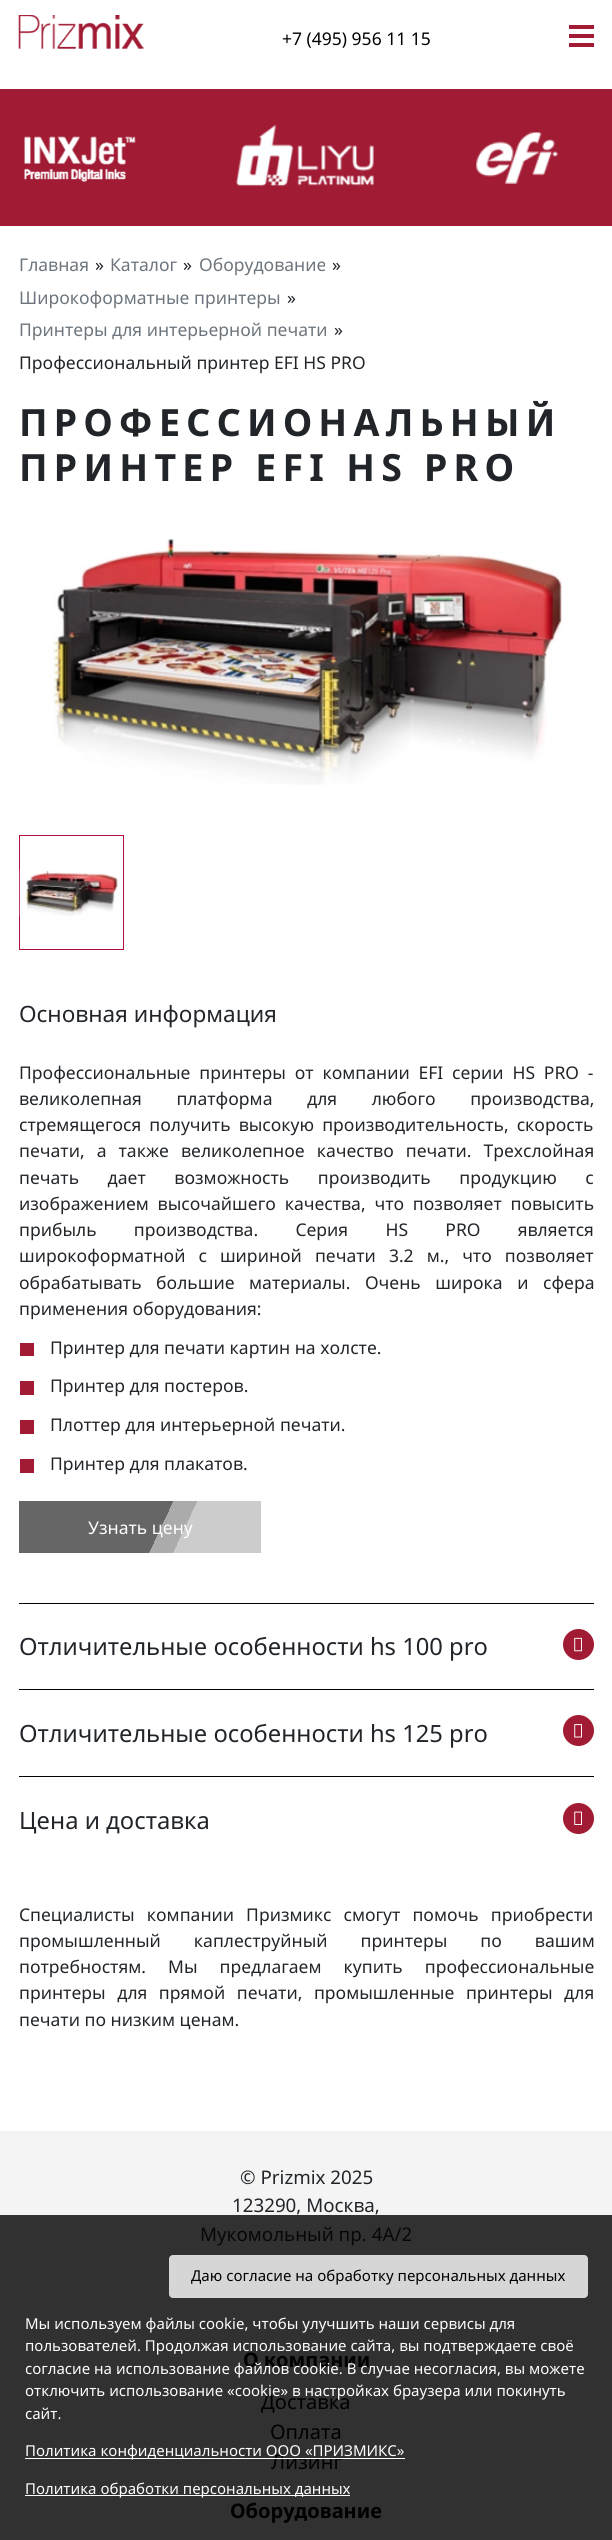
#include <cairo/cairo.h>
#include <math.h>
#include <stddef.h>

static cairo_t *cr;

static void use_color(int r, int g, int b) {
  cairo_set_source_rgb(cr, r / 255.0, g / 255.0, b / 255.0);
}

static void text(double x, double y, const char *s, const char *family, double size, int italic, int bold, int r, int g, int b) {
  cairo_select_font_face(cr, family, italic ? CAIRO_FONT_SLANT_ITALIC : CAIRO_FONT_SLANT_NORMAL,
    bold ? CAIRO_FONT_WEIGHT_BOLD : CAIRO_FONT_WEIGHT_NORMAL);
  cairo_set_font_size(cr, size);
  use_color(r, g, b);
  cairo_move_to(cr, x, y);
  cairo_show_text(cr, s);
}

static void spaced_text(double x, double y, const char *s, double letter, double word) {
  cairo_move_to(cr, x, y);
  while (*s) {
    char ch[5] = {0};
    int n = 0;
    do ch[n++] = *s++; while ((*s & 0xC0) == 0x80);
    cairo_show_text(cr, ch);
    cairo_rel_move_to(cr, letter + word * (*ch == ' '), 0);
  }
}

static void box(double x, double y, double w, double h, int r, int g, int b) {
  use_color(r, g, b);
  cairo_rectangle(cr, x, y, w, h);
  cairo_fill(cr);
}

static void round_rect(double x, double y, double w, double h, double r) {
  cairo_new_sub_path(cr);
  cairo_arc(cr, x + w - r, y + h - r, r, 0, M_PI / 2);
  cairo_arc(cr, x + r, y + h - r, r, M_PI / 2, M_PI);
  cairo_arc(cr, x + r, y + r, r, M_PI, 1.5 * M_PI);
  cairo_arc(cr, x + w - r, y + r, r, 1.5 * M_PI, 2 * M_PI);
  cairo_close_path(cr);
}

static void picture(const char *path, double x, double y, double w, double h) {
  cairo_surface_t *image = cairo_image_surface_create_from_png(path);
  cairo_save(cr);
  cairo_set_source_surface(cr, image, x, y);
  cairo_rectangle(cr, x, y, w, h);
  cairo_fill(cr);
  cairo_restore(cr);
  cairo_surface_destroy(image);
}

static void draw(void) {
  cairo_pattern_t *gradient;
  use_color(255, 255, 255);
  cairo_paint(cr);
  picture("img_01.png", 18, 15, 126, 34);
  box(569, 34, 25, 4, 161, 27, 52);
  box(569, 25, 25, 4, 161, 27, 52);
  box(569, 43, 25, 4, 161, 27, 52);
  box(0, 89, 612, 137, 161, 27, 52);
  picture("img_02.png", 24, 136, 112, 47);
  picture("img_03.png", 236, 124, 138, 62);
  picture("img_04.png", 476, 132, 82, 52);
  picture("img_05.png", 52, 539, 510, 246);
  cairo_rectangle(cr, 19.5, 835.5, 104, 114);
  use_color(178, 14, 59);
  cairo_set_line_width(cr, 1);
  cairo_stroke(cr);
  picture("img_06.png", 19, 870, 99, 47);
  box(20, 1343, 14, 13, 161, 27, 52);
  box(20, 1381, 14, 14, 161, 27, 52);
  box(20, 1420, 14, 14, 161, 27, 52);
  box(20, 1459, 14, 14, 161, 27, 52);
  gradient = cairo_pattern_create_linear(31, 1476, 249, 1578);
  cairo_pattern_add_color_stop_rgba(gradient, 0, 0.4, 0.4, 0.4, 1);
  cairo_pattern_add_color_stop_rgba(gradient, 0.58, 0.4, 0.4, 0.4, 1);
  cairo_pattern_add_color_stop_rgba(gradient, 0.58, 0.671, 0.671, 0.671, 1);
  cairo_pattern_add_color_stop_rgba(gradient, 0.67, 0.671, 0.671, 0.671, 1);
  cairo_pattern_add_color_stop_rgba(gradient, 0.67, 0.8, 0.8, 0.8, 1);
  cairo_pattern_add_color_stop_rgba(gradient, 1, 0.8, 0.8, 0.8, 1);
  cairo_set_source(cr, gradient);
  cairo_pattern_destroy(gradient);
  cairo_rectangle(cr, 19, 1501, 242, 52);
  cairo_fill(cr);
  box(19, 1603, 575, 1, 0, 0, 0);
  use_color(161, 27, 52);
  cairo_arc(cr, 578.5, 1644.5, 15.5, 0, 2 * M_PI);
  cairo_fill(cr);
  picture("img_07.png", 574, 1637, 8, 15);
  box(19, 1689, 575, 1, 0, 0, 0);
  use_color(161, 27, 52);
  cairo_arc(cr, 578.5, 1730.5, 15.5, 0, 2 * M_PI);
  cairo_fill(cr);
  picture("img_08.png", 574, 1724, 8, 14);
  box(19, 1776, 575, 1, 0, 0, 0);
  use_color(161, 27, 52);
  cairo_arc(cr, 578.5, 1818.5, 15.5, 0, 2 * M_PI);
  cairo_fill(cr);
  picture("img_09.png", 574, 1811, 8, 14);
  box(0, 2131, 612, 84, 244, 244, 244);
  box(0, 2215, 612, 325, 49, 49, 49);
  cairo_set_source_rgba(cr, 1, 1, 1, 0.8);
  round_rect(169, 2255, 419, 43, 4);
  cairo_fill(cr);
  box(25, 2495, 325, 1, 255, 255, 255);
  text(282, 45, "+7 (495) 956 11 15", "Noto Sans", 17.5, 0, 0, 0, 0, 0);
  text(19, 271, "Главная", "Noto Sans", 17.5, 0, 0, 108, 117, 125);
  text(95, 271, "»", "Noto Sans", 17.5, 0, 0, 33, 37, 41);
  text(110, 271, "Каталог", "Noto Sans", 17.5, 0, 0, 108, 117, 125);
  text(183, 271, "»", "Noto Sans", 17.5, 0, 0, 33, 37, 41);
  text(199, 271, "Оборудование", "Noto Sans", 17.5, 0, 0, 108, 117, 125);
  text(332, 271, "»", "Noto Sans", 17.5, 0, 0, 33, 37, 41);
  text(19, 304, "Широкоформатные принтеры", "Noto Sans", 17.5, 0, 0, 108, 117, 125);
  text(287, 304, "»", "Noto Sans", 17.5, 0, 0, 33, 37, 41);
  text(19, 336, "Принтеры для интерьерной печати", "Noto Sans", 17.5, 0, 0, 108, 117, 125);
  text(334, 336, "»", "Noto Sans", 17.5, 0, 0, 33, 37, 41);
  text(19, 369, "Профессиональный принтер EFI HS PRO", "Noto Sans", 17.5, 0, 0, 33, 37, 41);
  cairo_select_font_face(cr, "Noto Sans", CAIRO_FONT_SLANT_NORMAL, CAIRO_FONT_WEIGHT_BOLD);
  cairo_set_font_size(cr, 37.5);
  spaced_text(19, 436, "ПРОФЕССИОНАЛЬНЫЙ", 6.25, 0);
  spaced_text(19, 481, "ПРИНТЕР EFI HS PRO", 6.25, 0);
  text(19, 1022, "Основная информация", "Noto Sans", 22.5, 0, 0, 33, 37, 41);
  cairo_set_font_size(cr, 17.5);
  spaced_text(19, 1079, "Профессиональные принтеры от компании EFI серии HS PRO -", 0, 4.25);
  spaced_text(19, 1105, "великолепная платформа для любого производства,", 0, 30);
  spaced_text(19, 1131, "стремящегося получить высокую производительность, скорость", 0, 3.5);
  spaced_text(19, 1157, "печати, а также великолепное качество печати. Трехслойная", 0, 7.5);
  spaced_text(19, 1184, "печать дает возможность производить продукцию с", 0, 24);
  spaced_text(19, 1210, "изображением высочайшего качества, что позволяет повысить", 0, 4.25);
  spaced_text(19, 1236, "прибыль производства. Серия HS PRO является", 0, 32.75);
  spaced_text(19, 1262, "широкоформатной с шириной печати 3.2 м., что позволяет", 0, 8.5);
  spaced_text(19, 1289, "обрабатывать большие материалы. Очень широка и сфера", 0, 10);
  text(19, 1315, "применения оборудования:", "Noto Sans", 17.5, 0, 0, 33, 37, 41);
  text(50, 1354, "Принтер для печати картин на холсте.", "Noto Sans", 17.5, 0, 0, 33, 37, 41);
  text(50, 1392, "Принтер для постеров.", "Noto Sans", 17.5, 0, 0, 33, 37, 41);
  text(50, 1431, "Плоттер для интерьерной печати.", "Noto Sans", 17.5, 0, 0, 33, 37, 41);
  text(50, 1470, "Принтер для плакатов.", "Noto Sans", 17.5, 0, 0, 33, 37, 41);
  text(88, 1534, "Узнать цену", "Noto Sans", 17.5, 0, 0, 255, 255, 255);
  text(19, 1655, "Отличительные особенности hs 100 pro", "Noto Sans", 23.75, 0, 0, 33, 37, 41);
  text(19, 1742, "Отличительные особенности hs 125 pro", "Noto Sans", 23.75, 0, 0, 33, 37, 41);
  text(19, 1829, "Цена и доставка", "Noto Sans", 23.75, 0, 0, 33, 37, 41);
  cairo_set_font_size(cr, 17.5);
  spaced_text(19, 1921, "Специалисты компании Призмикс смогут помочь приобрести", 0, 7.5);
  spaced_text(19, 1947, "промышленный каплеструйный принтеры по вашим", 0, 28.5);
  spaced_text(19, 1973, "потребностям. Мы предлагаем купить профессиональные", 0, 17.5);
  spaced_text(19, 1999, "принтеры для прямой печати, промышленные принтеры для", 0, 7);
  text(19, 2026, "печати по низким ценам.", "Noto Sans", 17.5, 0, 0, 33, 37, 41);
  text(240, 2184, "© Prizmix 2025", "Noto Sans", 18.75, 0, 0, 33, 37, 41);
  text(232, 2212, "123290, Москва,", "Noto Sans", 18.75, 0, 0, 33, 37, 41);
  text(200, 2241, "Мукомольный пр. 4А/2", "Noto Sans", 18.75, 0, 0, 7, 7, 8);
  text(243, 2367, "О компании", "Noto Sans", 20, 0, 1, 0, 0, 0);
  text(261, 2409, "Доставка", "Noto Sans", 20, 0, 0, 0, 0, 0);
  text(270, 2439, "Оплата", "Noto Sans", 20, 0, 0, 0, 0, 0);
  text(271, 2469, "Лизинг", "Noto Sans", 20, 0, 0, 0, 0, 0);
  text(230, 2518, "Оборудование", "Noto Sans", 20, 0, 1, 0, 0, 0);
  text(191, 2281, "Даю согласие на обработку персональных данных", "Noto Sans", 15, 0, 0, 0, 0, 0);
  text(25, 2329, "Мы используем файлы cookie, чтобы улучшить наши сервисы для", "Noto Sans", 15, 0, 0, 255, 255, 255);
  text(25, 2351, "пользователей. Продолжая использование сайта, вы подтверждаете своё", "Noto Sans", 15, 0, 0, 255, 255, 255);
  text(25, 2374, "согласие на использование файлов cookie. В случае несогласия, вы можете", "Noto Sans", 15, 0, 0, 255, 255, 255);
  text(25, 2396, "отключить использование «cookie» в настройках браузера или покинуть", "Noto Sans", 15, 0, 0, 255, 255, 255);
  text(25, 2419, "сайт.", "Noto Sans", 15, 0, 0, 255, 255, 255);
  box(25, 2458, 380, 1, 255, 255, 255);
  text(25, 2456, "Политика конфиденциальности ООО «ПРИЗМИКС»", "Noto Sans", 15, 0, 0, 255, 255, 255);
  text(25, 2494, "Политика обработки персональных данных", "Noto Sans", 15, 0, 0, 255, 255, 255);
}

int main(void) {
  cairo_surface_t *surface = cairo_image_surface_create(CAIRO_FORMAT_RGB24, 612, 2540);
  cr = cairo_create(surface);
  cairo_font_options_t *options = cairo_font_options_create();
  cairo_font_options_set_hint_metrics(options, CAIRO_HINT_METRICS_OFF);
  cairo_font_options_set_hint_style(options, CAIRO_HINT_STYLE_NONE);
  cairo_set_font_options(cr, options);
  cairo_set_miter_limit(cr, 4);
  draw();
  cairo_surface_write_to_png(surface, "out.png");
  cairo_font_options_destroy(options);
  cairo_destroy(cr);
  cairo_surface_destroy(surface);
  return 0;
}
